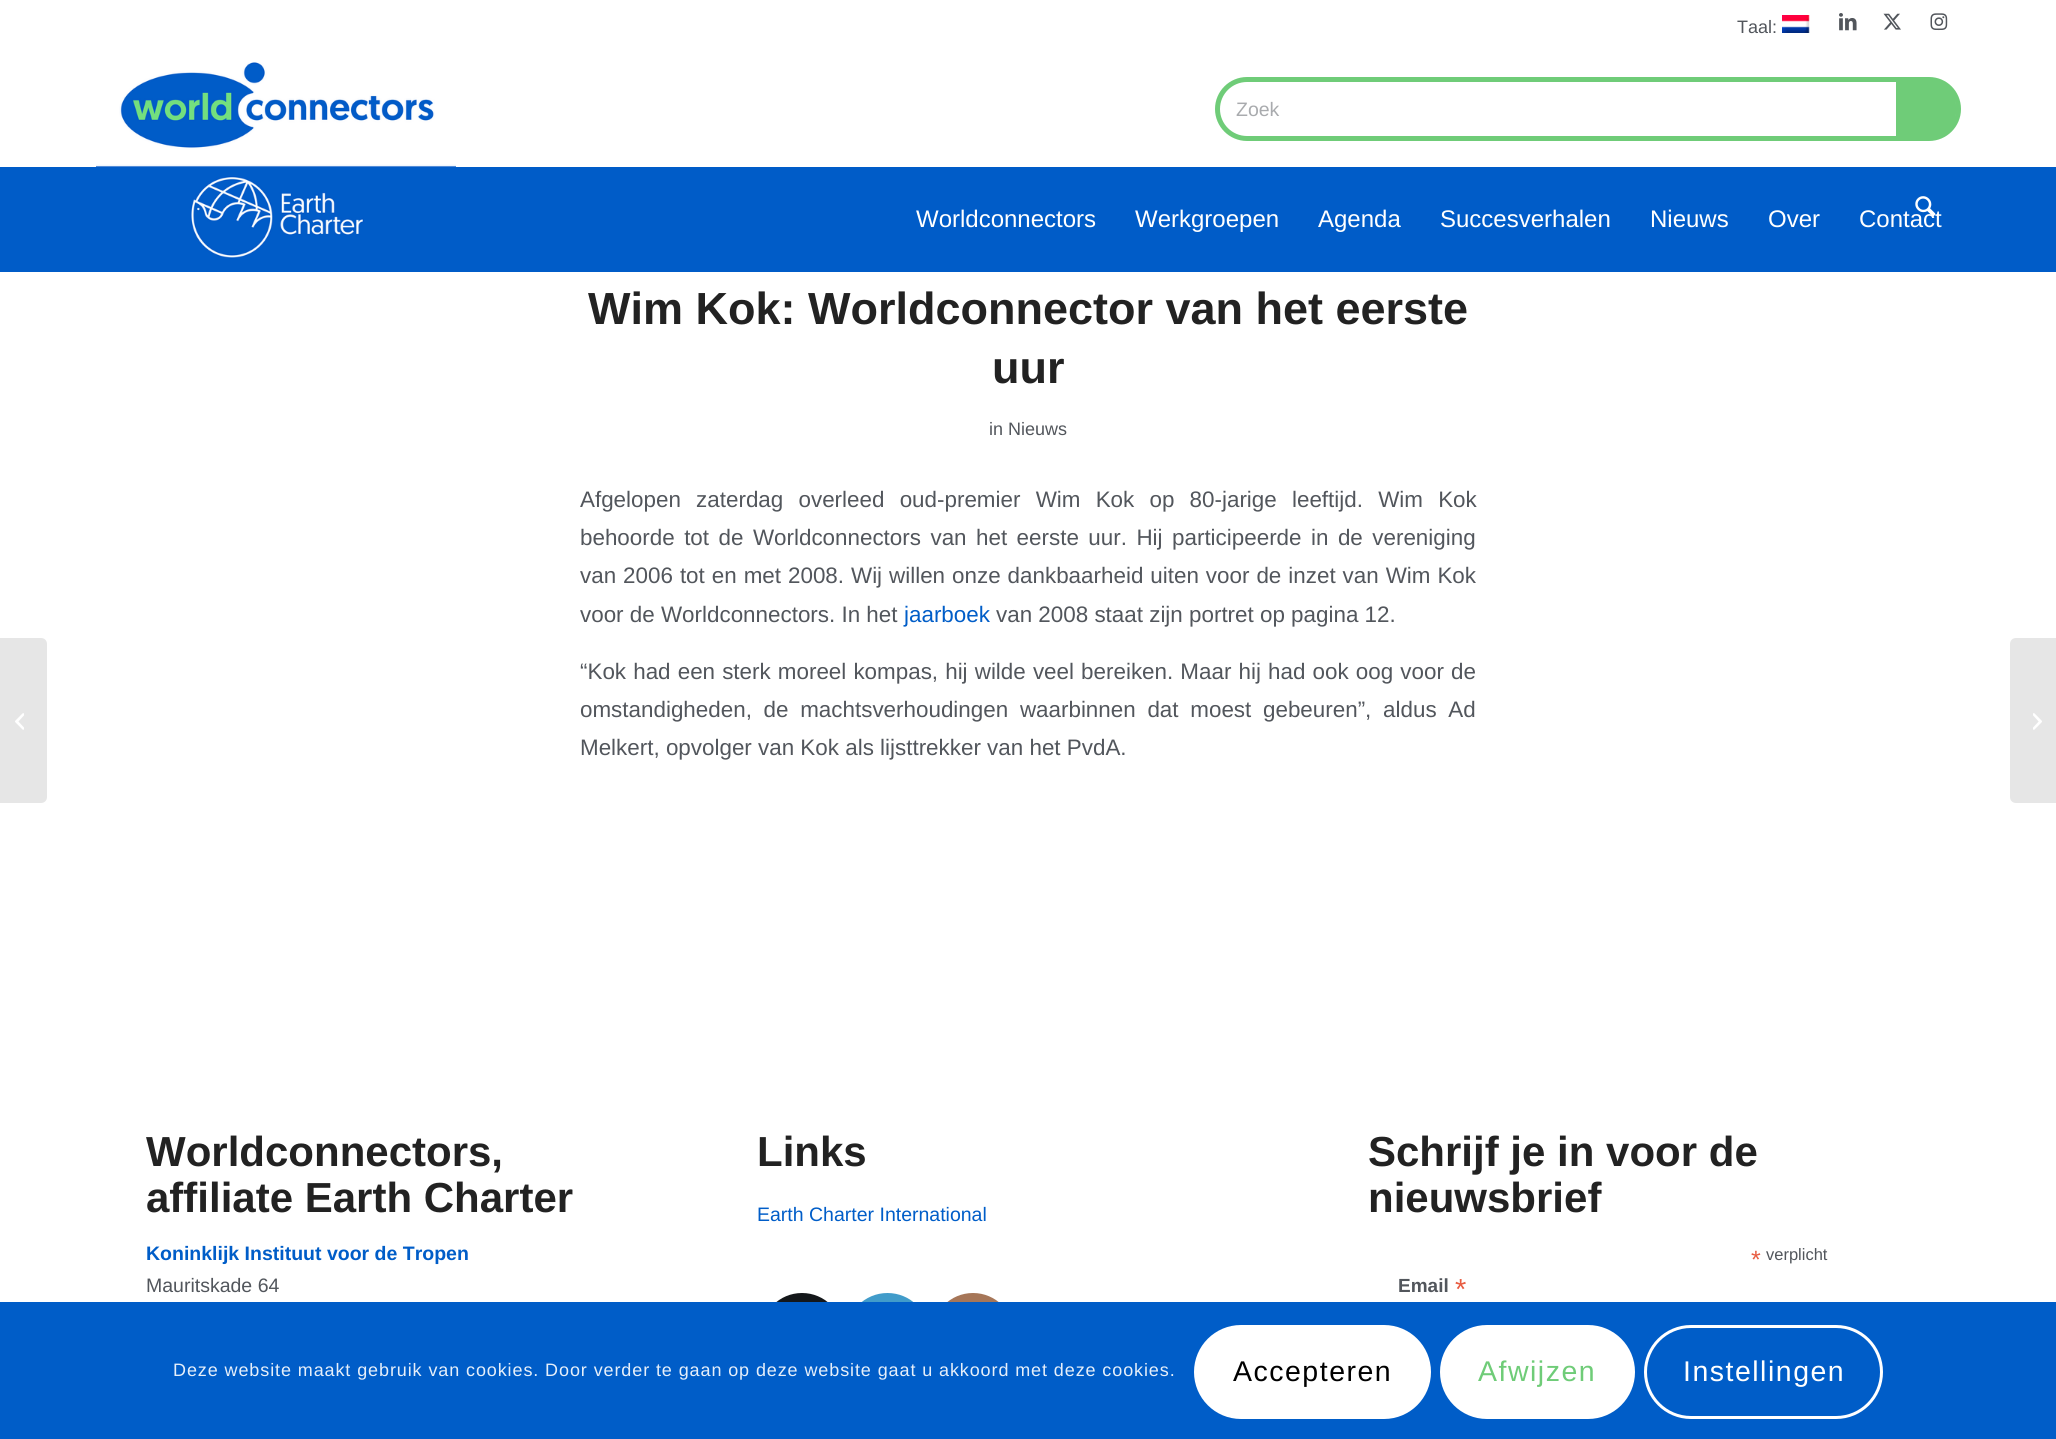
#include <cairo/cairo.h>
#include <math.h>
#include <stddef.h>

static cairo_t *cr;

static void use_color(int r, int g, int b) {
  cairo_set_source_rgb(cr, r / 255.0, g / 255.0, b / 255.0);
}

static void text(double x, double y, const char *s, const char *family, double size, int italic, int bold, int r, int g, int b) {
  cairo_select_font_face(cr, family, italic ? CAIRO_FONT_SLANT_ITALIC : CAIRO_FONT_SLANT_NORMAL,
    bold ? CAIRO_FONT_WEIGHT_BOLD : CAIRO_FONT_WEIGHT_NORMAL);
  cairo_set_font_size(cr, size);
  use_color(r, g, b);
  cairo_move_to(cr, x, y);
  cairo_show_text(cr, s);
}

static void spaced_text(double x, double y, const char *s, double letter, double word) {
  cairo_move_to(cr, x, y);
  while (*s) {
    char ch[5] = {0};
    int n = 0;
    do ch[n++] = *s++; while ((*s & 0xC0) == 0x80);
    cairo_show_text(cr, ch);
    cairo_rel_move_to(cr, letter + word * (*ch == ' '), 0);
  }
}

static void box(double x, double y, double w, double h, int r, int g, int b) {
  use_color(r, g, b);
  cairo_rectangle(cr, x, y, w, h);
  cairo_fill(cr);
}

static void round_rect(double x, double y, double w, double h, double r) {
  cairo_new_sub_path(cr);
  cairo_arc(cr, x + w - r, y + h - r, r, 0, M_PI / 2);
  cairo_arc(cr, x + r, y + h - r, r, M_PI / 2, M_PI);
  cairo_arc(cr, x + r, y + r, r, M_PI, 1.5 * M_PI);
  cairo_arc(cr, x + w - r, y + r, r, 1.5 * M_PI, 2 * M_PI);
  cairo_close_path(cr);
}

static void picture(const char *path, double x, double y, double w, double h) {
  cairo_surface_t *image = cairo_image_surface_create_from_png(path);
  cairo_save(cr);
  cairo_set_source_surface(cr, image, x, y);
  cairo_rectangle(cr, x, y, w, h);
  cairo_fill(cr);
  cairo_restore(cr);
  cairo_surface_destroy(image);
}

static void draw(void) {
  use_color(255, 255, 255);
  cairo_paint(cr);
  picture("img_01.png", 1782, 15, 28, 18);
  picture("img_02.png", 1839, 13, 18, 18);
  picture("img_03.png", 1883, 13, 18, 17);
  picture("img_04.png", 1930, 13, 18, 18);
  box(0, 167, 2056, 105, 0, 92, 200);
  picture("img_05.png", 96, 62, 360, 197);
  round_rect(1217.5, 79.5, 741, 59, 29.5);
  use_color(111, 204, 120);
  cairo_set_line_width(cr, 5);
  cairo_stroke(cr);
  cairo_new_path(cr);
  cairo_move_to(cr, 1896, 81);
  cairo_line_to(cr, 1933, 81);
  cairo_curve_to(cr, 1945.5, 81, 1956, 91.5, 1956, 104);
  cairo_line_to(cr, 1956, 114);
  cairo_curve_to(cr, 1956, 126.5, 1945.5, 137, 1933, 137);
  cairo_line_to(cr, 1896, 137);
  cairo_close_path(cr);
  cairo_fill(cr);
  use_color(230, 230, 230);
  cairo_new_path(cr);
  cairo_move_to(cr, 0, 638);
  cairo_line_to(cr, 41, 638);
  cairo_curve_to(cr, 44.5, 638, 47, 640.5, 47, 644);
  cairo_line_to(cr, 47, 797);
  cairo_curve_to(cr, 47, 800.5, 44.5, 803, 41, 803);
  cairo_line_to(cr, 0, 803);
  cairo_close_path(cr);
  cairo_fill(cr);
  picture("img_07.png", 15, 713, 9, 17);
  use_color(20, 23, 26);
  round_rect(761, 1293, 82, 83, 41);
  cairo_fill(cr);
  use_color(65, 156, 202);
  cairo_arc(cr, 887.5, 1334.5, 41.5, 0, 2 * M_PI);
  cairo_fill(cr);
  use_color(166, 118, 88);
  round_rect(932, 1293, 82, 83, 41);
  cairo_fill(cr);
  use_color(230, 230, 230);
  cairo_new_path(cr);
  cairo_move_to(cr, 2016, 638);
  cairo_line_to(cr, 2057, 638);
  cairo_line_to(cr, 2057, 803);
  cairo_line_to(cr, 2016, 803);
  cairo_curve_to(cr, 2012.5, 803, 2010, 800.5, 2010, 797);
  cairo_line_to(cr, 2010, 644);
  cairo_curve_to(cr, 2010, 640.5, 2012.5, 638, 2016, 638);
  cairo_close_path(cr);
  cairo_fill(cr);
  picture("img_08.png", 2033, 713, 9, 17);
  box(0, 1302, 2056, 137, 0, 93, 200);
  use_color(255, 255, 255);
  round_rect(1194, 1325, 237, 94, 47);
  cairo_fill(cr);
  round_rect(1441.5, 1326.5, 192, 91, 45.5);
  cairo_fill_preserve(cr);
  cairo_set_line_width(cr, 3);
  cairo_stroke(cr);
  round_rect(1645.5, 1326.5, 236, 91, 45.5);
  cairo_stroke(cr);
  text(1737, 33, "Taal:", "Liberation Sans", 18, 0, 0, 82, 86, 92);
  text(1236, 116, "Zoek", "Liberation Sans", 19.5, 0, 0, 169, 171, 174);
  text(916, 227, "Worldconnectors", "Liberation Sans", 24, 0, 0, 255, 255, 255);
  text(1135, 227, "Werkgroepen", "Liberation Sans", 24, 0, 0, 255, 255, 255);
  text(1318, 227, "Agenda", "Liberation Sans", 24, 0, 0, 255, 255, 255);
  text(1440, 227, "Succesverhalen", "Liberation Sans", 24, 0, 0, 255, 255, 255);
  text(1650, 227, "Nieuws", "Liberation Sans", 24, 0, 0, 255, 255, 255);
  text(1768, 227, "Over", "Liberation Sans", 24, 0, 0, 255, 255, 255);
  text(1859, 227, "Contact", "Liberation Sans", 24, 0, 0, 255, 255, 255);
  picture("img_06.png", 1915, 196, 21, 21);
  text(588, 324, "Wim Kok: Worldconnector van het eerste", "Liberation Sans", 45, 0, 1, 34, 34, 34);
  text(992, 383, "uur", "Liberation Sans", 45, 0, 1, 34, 34, 34);
  text(989, 435, "in Nieuws", "Liberation Sans", 18, 0, 0, 82, 86, 92);
  cairo_set_font_size(cr, 22.4);
  spaced_text(580, 507, "Afgelopen zaterdag overleed oud-premier Wim Kok op 80-jarige leeftijd. Wim Kok", 0, 9);
  spaced_text(580, 545, "behoorde tot de Worldconnectors van het eerste uur. Hij participeerde in de vereniging", 0, 3.25);
  spaced_text(580, 583, "van 2006 tot en met 2008. Wij willen onze dankbaarheid uiten voor de inzet van Wim Kok", 0, 0.75);
  text(580, 622, "voor de Worldconnectors. In het", "Liberation Sans", 22.4, 0, 0, 82, 86, 92);
  text(904, 622, "jaarboek", "Liberation Sans", 22.4, 0, 0, 0, 93, 200);
  text(996, 622, "van 2008 staat zijn portret op pagina 12.", "Liberation Sans", 22.4, 0, 0, 82, 86, 92);
  spaced_text(580, 679, "“Kok had een sterk moreel kompas, hij wilde veel bereiken. Maar hij had ook oog voor de", 0, 0.9);
  spaced_text(580, 717, "omstandigheden, de machtsverhoudingen waarbinnen dat moest gebeuren”, aldus Ad", 0, 5.5);
  text(580, 755, "Melkert, opvolger van Kok als lijsttrekker van het PvdA.", "Liberation Sans", 22.4, 0, 0, 82, 86, 92);
  text(146, 1166, "Worldconnectors,", "Liberation Sans", 42, 0, 1, 34, 34, 34);
  text(146, 1212, "affiliate Earth Charter", "Liberation Sans", 42, 0, 1, 34, 34, 34);
  text(146, 1260, "Koninklijk Instituut voor de Tropen", "Liberation Sans", 19.5, 0, 1, 0, 93, 200);
  text(146, 1292, "Mauritskade 64", "Liberation Sans", 19.5, 0, 0, 82, 86, 92);
  text(757, 1166, "Links", "Liberation Sans", 42, 0, 1, 34, 34, 34);
  text(757, 1221, "Earth Charter International", "Liberation Sans", 19.5, 0, 0, 0, 93, 200);
  text(1368, 1166, "Schrijf je in voor de", "Liberation Sans", 42, 0, 1, 34, 34, 34);
  text(1368, 1212, "nieuwsbrief", "Liberation Sans", 42, 0, 1, 34, 34, 34);
  text(1751, 1268, "*", "Liberation Sans", 25, 0, 0, 232, 92, 65);
  text(1766, 1260, "verplicht", "Liberation Sans", 16.5, 0, 0, 82, 86, 92);
  text(1398, 1292, "Email", "Liberation Sans", 19, 0, 1, 82, 86, 92);
  text(1455, 1299, "*", "Liberation Sans", 29, 0, 0, 232, 92, 65);
  cairo_set_font_size(cr, 18);
  use_color(230, 239, 250);
  spaced_text(173, 1376, "Deze website maakt gebruik van cookies. Door verder te gaan op deze website gaat u akkoord met deze cookies.", 0.9, 0);
  cairo_set_font_size(cr, 28.5);
  use_color(0, 0, 0);
  spaced_text(1233, 1381, "Accepteren", 1.5, 0);
  use_color(111, 204, 120);
  spaced_text(1478, 1381, "Afwijzen", 1.5, 0);
  use_color(255, 255, 255);
  spaced_text(1683, 1381, "Instellingen", 1.5, 0);
}

int main(void) {
  cairo_surface_t *surface = cairo_image_surface_create(CAIRO_FORMAT_RGB24, 2056, 1439);
  cr = cairo_create(surface);
  cairo_font_options_t *options = cairo_font_options_create();
  cairo_font_options_set_hint_metrics(options, CAIRO_HINT_METRICS_OFF);
  cairo_font_options_set_hint_style(options, CAIRO_HINT_STYLE_NONE);
  cairo_set_font_options(cr, options);
  cairo_set_miter_limit(cr, 4);
  draw();
  cairo_surface_write_to_png(surface, "out.png");
  cairo_font_options_destroy(options);
  cairo_destroy(cr);
  cairo_surface_destroy(surface);
  return 0;
}
